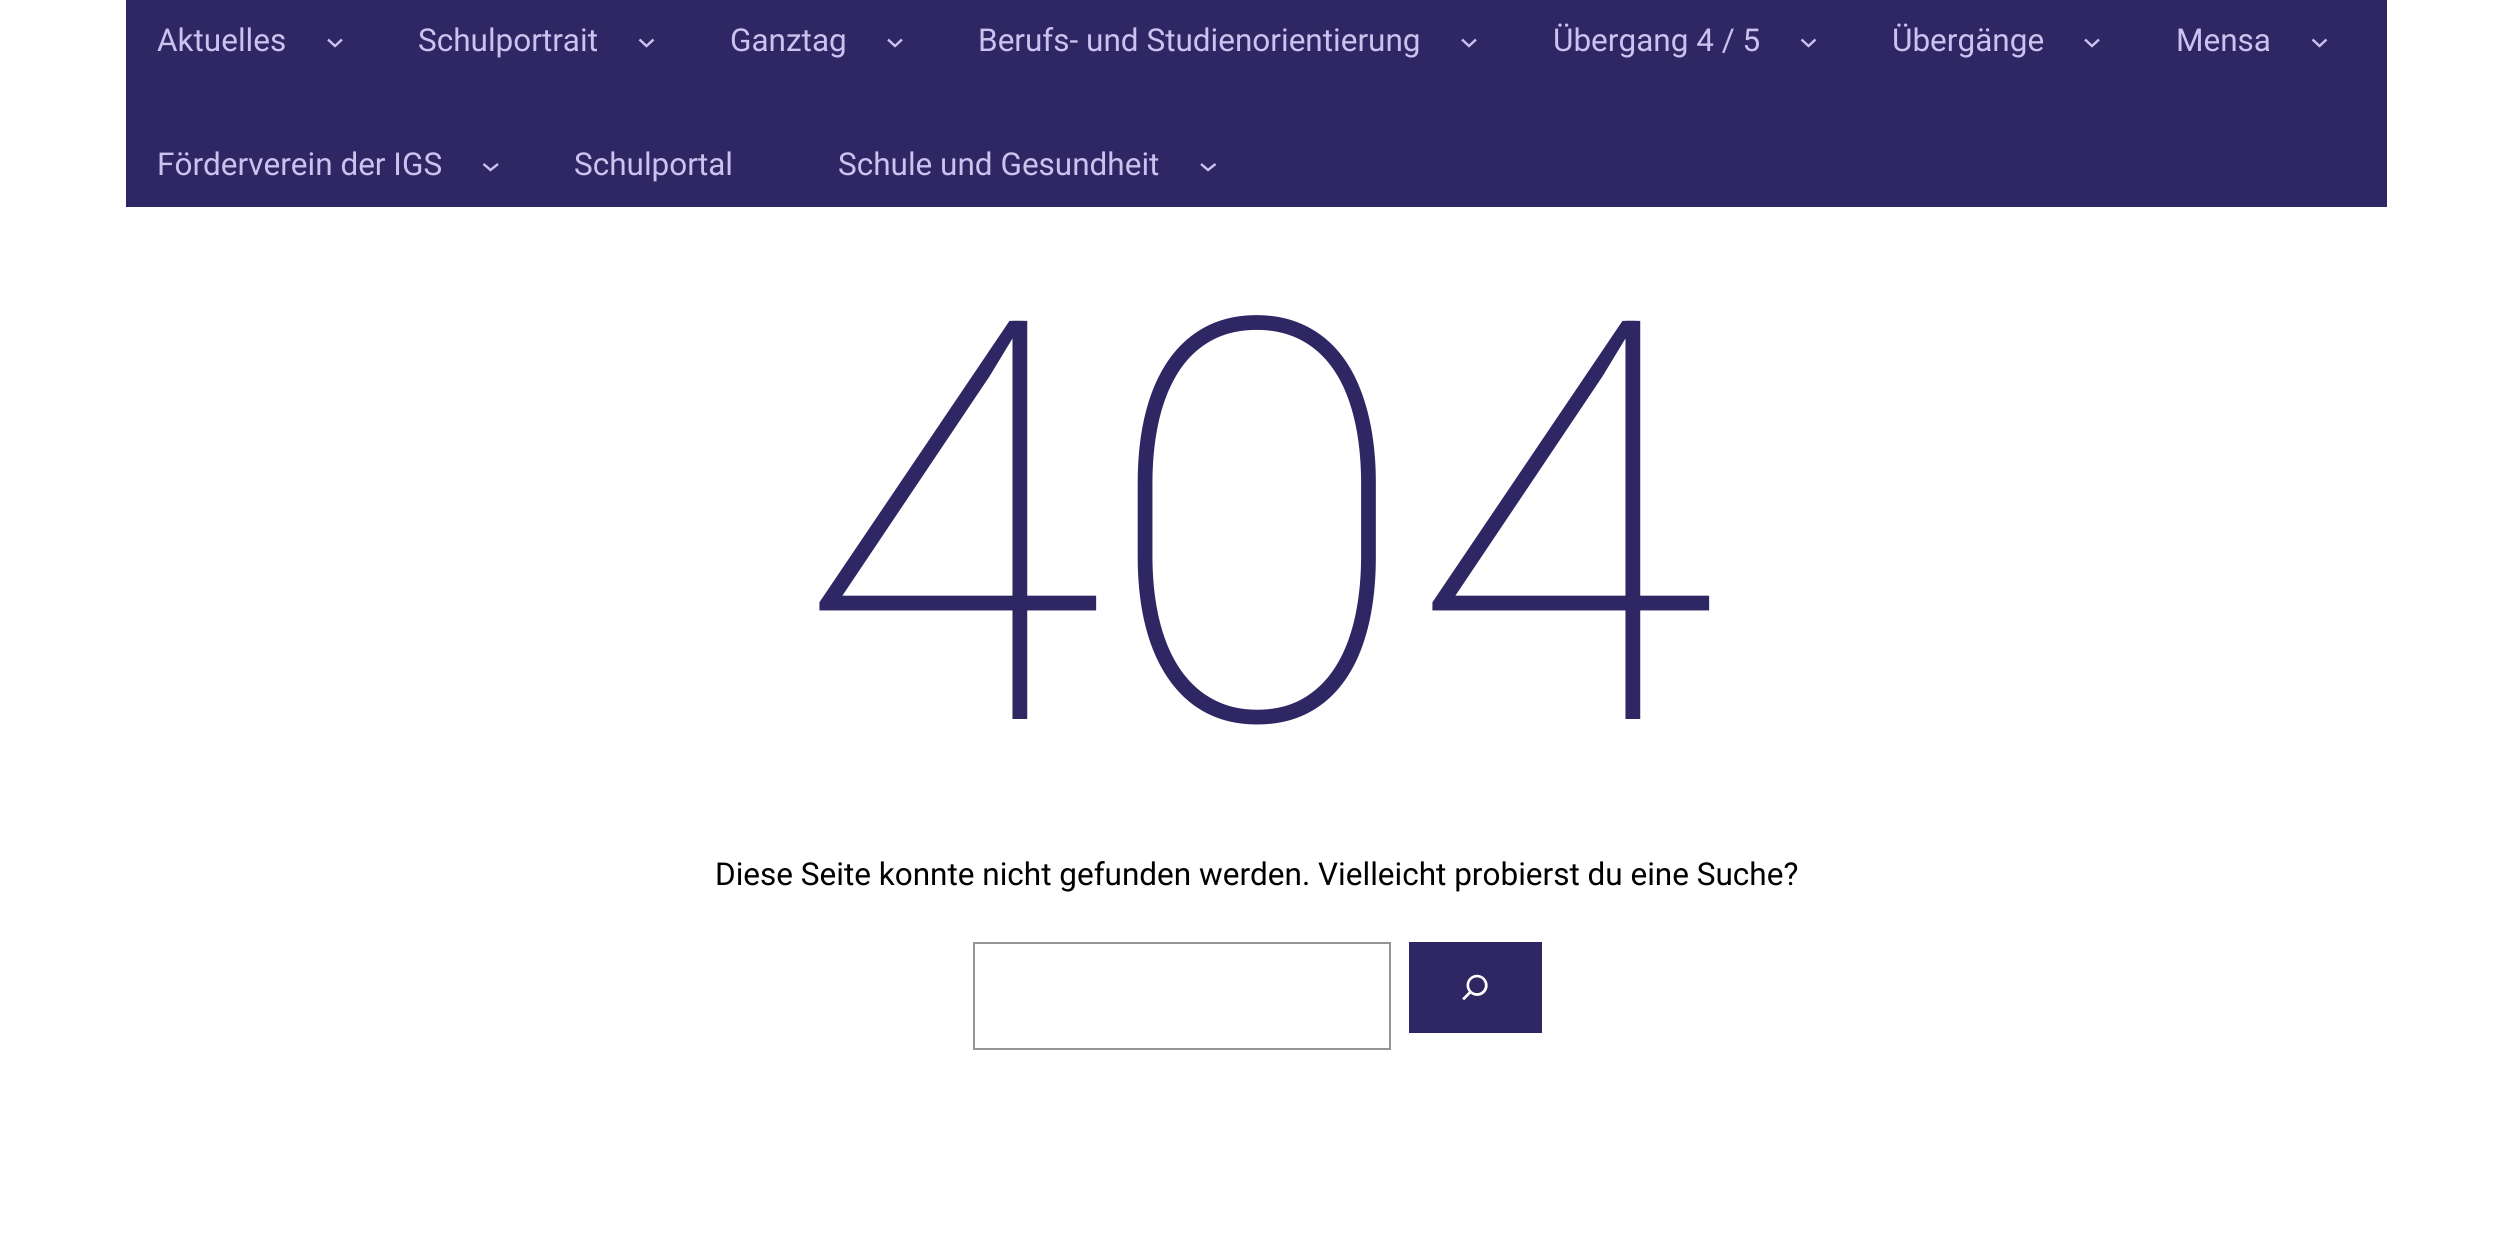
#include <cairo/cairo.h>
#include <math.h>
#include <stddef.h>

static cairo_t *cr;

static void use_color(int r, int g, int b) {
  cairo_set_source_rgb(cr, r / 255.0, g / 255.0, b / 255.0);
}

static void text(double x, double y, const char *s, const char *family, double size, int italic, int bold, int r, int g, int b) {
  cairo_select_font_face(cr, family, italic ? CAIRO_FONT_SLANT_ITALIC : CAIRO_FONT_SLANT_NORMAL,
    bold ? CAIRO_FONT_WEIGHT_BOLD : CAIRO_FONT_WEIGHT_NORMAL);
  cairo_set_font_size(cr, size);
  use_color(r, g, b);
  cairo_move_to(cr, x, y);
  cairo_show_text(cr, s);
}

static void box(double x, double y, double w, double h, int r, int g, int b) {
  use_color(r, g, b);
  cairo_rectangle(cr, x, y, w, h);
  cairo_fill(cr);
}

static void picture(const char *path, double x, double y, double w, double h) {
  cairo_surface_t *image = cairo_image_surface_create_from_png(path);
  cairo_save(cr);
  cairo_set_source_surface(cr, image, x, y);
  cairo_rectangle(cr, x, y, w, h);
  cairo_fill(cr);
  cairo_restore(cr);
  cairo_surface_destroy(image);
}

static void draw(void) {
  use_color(255, 255, 255);
  cairo_paint(cr);
  box(126, 0, 2261, 207, 47, 39, 100);
  cairo_new_path(cr);
  cairo_move_to(cr, 328, 39.5);
  cairo_line_to(cr, 335, 46);
  cairo_line_to(cr, 342, 39.5);
  use_color(203, 194, 240);
  cairo_set_line_width(cr, 2.4);
  cairo_stroke(cr);
  cairo_new_path(cr);
  cairo_move_to(cr, 639.5, 39.5);
  cairo_line_to(cr, 646.5, 46);
  cairo_line_to(cr, 653.5, 39.5);
  cairo_stroke(cr);
  cairo_new_path(cr);
  cairo_move_to(cr, 888, 39.5);
  cairo_line_to(cr, 895, 46);
  cairo_line_to(cr, 902, 39.5);
  cairo_stroke(cr);
  cairo_new_path(cr);
  cairo_move_to(cr, 1462, 39.5);
  cairo_line_to(cr, 1469, 46);
  cairo_line_to(cr, 1476, 39.5);
  cairo_stroke(cr);
  cairo_new_path(cr);
  cairo_move_to(cr, 1801.5, 39.5);
  cairo_line_to(cr, 1808.5, 46);
  cairo_line_to(cr, 1815.5, 39.5);
  cairo_stroke(cr);
  cairo_new_path(cr);
  cairo_move_to(cr, 2085, 39.5);
  cairo_line_to(cr, 2092, 46);
  cairo_line_to(cr, 2099, 39.5);
  cairo_stroke(cr);
  cairo_new_path(cr);
  cairo_move_to(cr, 2312.5, 39.5);
  cairo_line_to(cr, 2319.5, 46);
  cairo_line_to(cr, 2326.5, 39.5);
  cairo_stroke(cr);
  cairo_new_path(cr);
  cairo_move_to(cr, 483.5, 164);
  cairo_line_to(cr, 490.5, 170);
  cairo_line_to(cr, 498, 164);
  cairo_stroke(cr);
  cairo_new_path(cr);
  cairo_move_to(cr, 1201, 164);
  cairo_line_to(cr, 1208, 170);
  cairo_line_to(cr, 1215.5, 164);
  cairo_stroke(cr);
  cairo_rectangle(cr, 974, 943, 416, 106);
  use_color(148, 148, 148);
  cairo_set_line_width(cr, 2);
  cairo_stroke(cr);
  box(1409, 942, 133, 91, 47, 39, 100);
  picture("img_01.png", 1462, 974, 26, 27);
  text(157, 51, "Aktuelles", "Roboto", 31.5, 0, 0, 203, 194, 240);
  text(418, 51, "Schulportrait", "Roboto", 31.5, 0, 0, 203, 194, 240);
  text(730, 51, "Ganztag", "Roboto", 31.5, 0, 0, 203, 194, 240);
  text(978, 51, "Berufs- und Studienorientierung", "Roboto", 31.5, 0, 0, 203, 194, 240);
  text(1553, 51, "Übergang 4 / 5", "Roboto", 31.5, 0, 0, 203, 194, 240);
  text(1892, 51, "Übergänge", "Roboto", 31.5, 0, 0, 203, 194, 240);
  text(2176, 51, "Mensa", "Roboto", 31.5, 0, 0, 203, 194, 240);
  text(157, 175, "Förderverein der IGS", "Roboto", 31.5, 0, 0, 203, 194, 240);
  text(574, 175, "Schulportal", "Roboto", 31.5, 0, 0, 203, 194, 240);
  text(838, 175, "Schule und Gesundheit", "Roboto", 31.5, 0, 0, 203, 194, 240);
  text(797, 719, "404", "Roboto Thin", 560, 0, 0, 47, 39, 100);
  text(715, 885, "Diese Seite konnte nicht gefunden werden. Vielleicht probierst du eine Suche?", "Roboto", 31.5, 0, 0, 0, 0, 0);
}

int main(void) {
  cairo_surface_t *surface = cairo_image_surface_create(CAIRO_FORMAT_RGB24, 2512, 1240);
  cr = cairo_create(surface);
  cairo_font_options_t *options = cairo_font_options_create();
  cairo_font_options_set_hint_metrics(options, CAIRO_HINT_METRICS_OFF);
  cairo_font_options_set_hint_style(options, CAIRO_HINT_STYLE_NONE);
  cairo_set_font_options(cr, options);
  cairo_set_miter_limit(cr, 4);
  draw();
  cairo_surface_write_to_png(surface, "out.png");
  cairo_font_options_destroy(options);
  cairo_destroy(cr);
  cairo_surface_destroy(surface);
  return 0;
}
